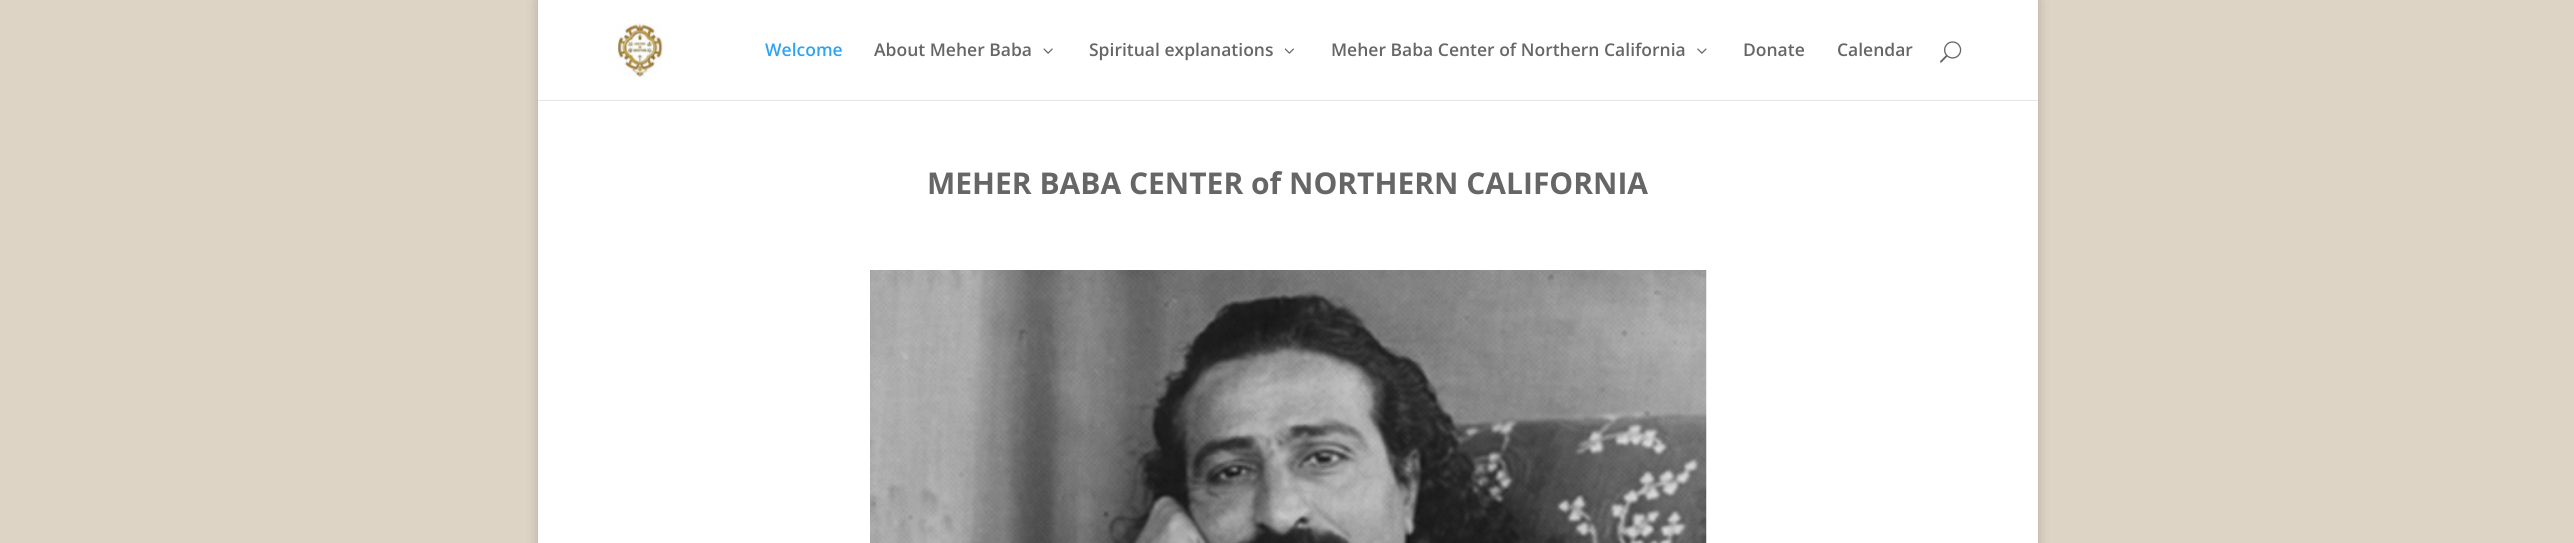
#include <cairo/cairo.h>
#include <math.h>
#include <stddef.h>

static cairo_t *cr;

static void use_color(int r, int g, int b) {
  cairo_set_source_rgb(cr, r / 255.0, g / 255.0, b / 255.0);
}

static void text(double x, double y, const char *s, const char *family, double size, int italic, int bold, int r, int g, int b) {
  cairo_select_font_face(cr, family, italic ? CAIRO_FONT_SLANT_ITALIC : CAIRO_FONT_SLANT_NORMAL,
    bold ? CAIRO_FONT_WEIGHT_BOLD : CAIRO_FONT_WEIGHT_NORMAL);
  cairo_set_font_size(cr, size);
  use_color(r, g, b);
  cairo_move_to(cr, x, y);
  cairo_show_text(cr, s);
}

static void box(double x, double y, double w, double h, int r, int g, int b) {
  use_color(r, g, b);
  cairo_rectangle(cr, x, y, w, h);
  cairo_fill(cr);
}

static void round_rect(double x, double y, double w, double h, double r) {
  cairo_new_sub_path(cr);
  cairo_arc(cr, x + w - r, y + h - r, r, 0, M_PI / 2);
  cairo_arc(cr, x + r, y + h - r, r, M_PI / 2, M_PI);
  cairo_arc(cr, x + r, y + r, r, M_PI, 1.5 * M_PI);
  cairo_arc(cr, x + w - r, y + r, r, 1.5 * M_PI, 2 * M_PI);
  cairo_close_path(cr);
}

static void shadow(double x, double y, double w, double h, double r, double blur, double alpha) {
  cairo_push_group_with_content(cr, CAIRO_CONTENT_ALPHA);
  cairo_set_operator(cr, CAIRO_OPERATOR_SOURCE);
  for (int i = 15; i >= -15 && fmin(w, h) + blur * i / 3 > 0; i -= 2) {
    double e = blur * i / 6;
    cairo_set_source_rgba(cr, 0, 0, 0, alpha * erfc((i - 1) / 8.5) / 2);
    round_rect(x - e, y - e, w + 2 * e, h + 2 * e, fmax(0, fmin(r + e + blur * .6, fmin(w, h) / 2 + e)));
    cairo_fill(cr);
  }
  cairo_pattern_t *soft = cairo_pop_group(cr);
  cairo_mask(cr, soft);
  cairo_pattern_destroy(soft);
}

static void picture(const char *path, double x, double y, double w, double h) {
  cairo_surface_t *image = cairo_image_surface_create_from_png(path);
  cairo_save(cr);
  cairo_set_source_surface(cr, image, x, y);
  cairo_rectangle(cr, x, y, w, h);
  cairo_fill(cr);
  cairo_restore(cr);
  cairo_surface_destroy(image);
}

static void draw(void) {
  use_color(221, 212, 197);
  cairo_paint(cr);
  use_color(0, 0, 0);
  shadow(538, 0, 1500, 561, 0, 6, 0.2);
  use_color(230, 230, 230);
  cairo_new_path(cr);
  cairo_move_to(cr, 538, 100);
  cairo_line_to(cr, 538, 101);
  cairo_line_to(cr, 2038, 101);
  cairo_line_to(cr, 2038, 1);
  cairo_line_to(cr, 2038, 100);
  cairo_close_path(cr);
  cairo_fill(cr);
  box(538, 0, 1500, 100, 255, 255, 255);
  picture("img_01.png", 617, 23, 46, 55);
  picture("img_02.png", 1043, 48, 10, 6);
  picture("img_03.png", 1284, 48, 10, 6);
  picture("img_04.png", 1697, 48, 10, 6);
  picture("img_05.png", 1940, 41, 22, 22);
  box(538, 101, 1500, 442, 255, 255, 255);
  picture("img_06.png", 870, 270, 837, 273);
  text(765, 56, "Welcome", "Open Sans SemiBold", 17.5, 0, 0, 46, 163, 242);
  text(874, 56, "About Meher Baba", "Open Sans SemiBold", 17.5, 0, 0, 102, 102, 102);
  text(1089, 56, "Spiritual explanations", "Open Sans SemiBold", 17.5, 0, 0, 102, 102, 102);
  text(1331, 56, "Meher Baba Center of Northern California", "Open Sans SemiBold", 17.5, 0, 0, 102, 102, 102);
  text(1743, 56, "Donate", "Open Sans SemiBold", 17.5, 0, 0, 102, 102, 102);
  text(1837, 56, "Calendar", "Open Sans SemiBold", 17.5, 0, 0, 102, 102, 102);
  text(927, 194, "MEHER BABA CENTER of NORTHERN CALIFORNIA", "Open Sans", 30, 0, 1, 102, 102, 102);
}

int main(void) {
  cairo_surface_t *surface = cairo_image_surface_create(CAIRO_FORMAT_RGB24, 2574, 543);
  cr = cairo_create(surface);
  cairo_font_options_t *options = cairo_font_options_create();
  cairo_font_options_set_hint_metrics(options, CAIRO_HINT_METRICS_OFF);
  cairo_font_options_set_hint_style(options, CAIRO_HINT_STYLE_NONE);
  cairo_set_font_options(cr, options);
  cairo_set_miter_limit(cr, 4);
  draw();
  cairo_surface_write_to_png(surface, "out.png");
  cairo_font_options_destroy(options);
  cairo_destroy(cr);
  cairo_surface_destroy(surface);
  return 0;
}
